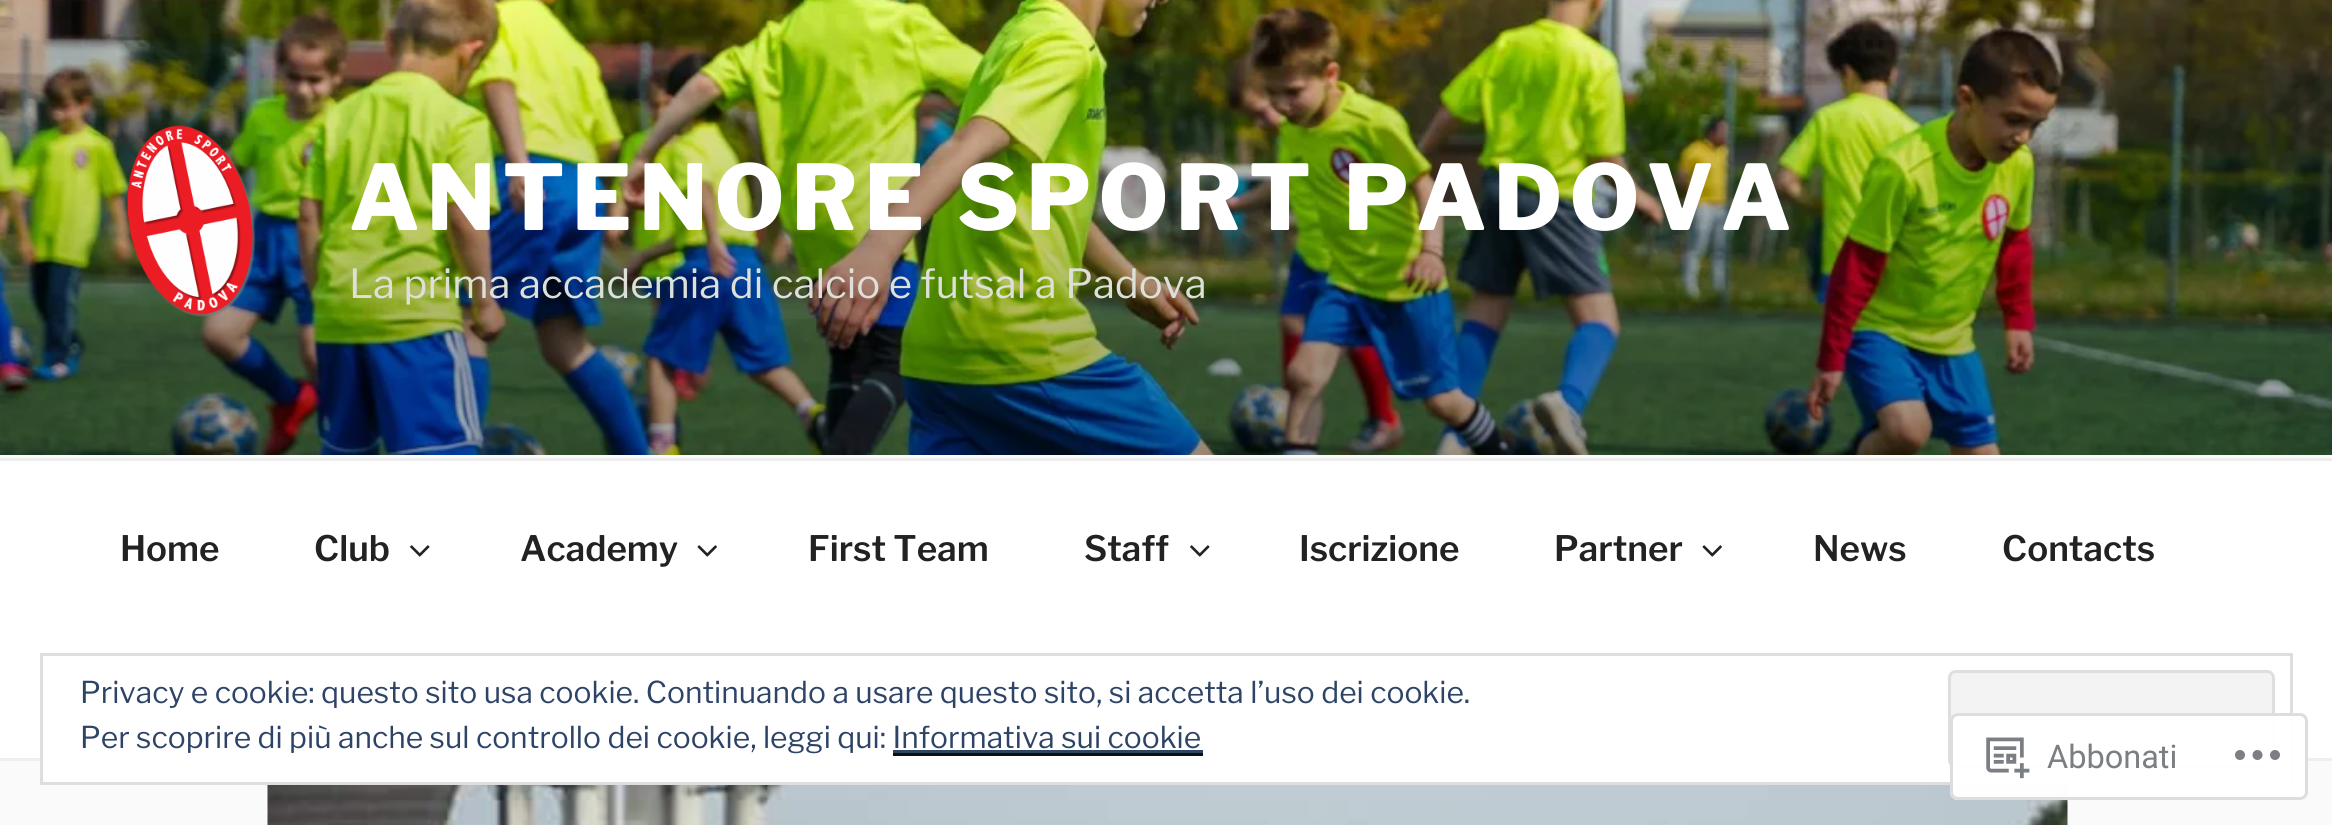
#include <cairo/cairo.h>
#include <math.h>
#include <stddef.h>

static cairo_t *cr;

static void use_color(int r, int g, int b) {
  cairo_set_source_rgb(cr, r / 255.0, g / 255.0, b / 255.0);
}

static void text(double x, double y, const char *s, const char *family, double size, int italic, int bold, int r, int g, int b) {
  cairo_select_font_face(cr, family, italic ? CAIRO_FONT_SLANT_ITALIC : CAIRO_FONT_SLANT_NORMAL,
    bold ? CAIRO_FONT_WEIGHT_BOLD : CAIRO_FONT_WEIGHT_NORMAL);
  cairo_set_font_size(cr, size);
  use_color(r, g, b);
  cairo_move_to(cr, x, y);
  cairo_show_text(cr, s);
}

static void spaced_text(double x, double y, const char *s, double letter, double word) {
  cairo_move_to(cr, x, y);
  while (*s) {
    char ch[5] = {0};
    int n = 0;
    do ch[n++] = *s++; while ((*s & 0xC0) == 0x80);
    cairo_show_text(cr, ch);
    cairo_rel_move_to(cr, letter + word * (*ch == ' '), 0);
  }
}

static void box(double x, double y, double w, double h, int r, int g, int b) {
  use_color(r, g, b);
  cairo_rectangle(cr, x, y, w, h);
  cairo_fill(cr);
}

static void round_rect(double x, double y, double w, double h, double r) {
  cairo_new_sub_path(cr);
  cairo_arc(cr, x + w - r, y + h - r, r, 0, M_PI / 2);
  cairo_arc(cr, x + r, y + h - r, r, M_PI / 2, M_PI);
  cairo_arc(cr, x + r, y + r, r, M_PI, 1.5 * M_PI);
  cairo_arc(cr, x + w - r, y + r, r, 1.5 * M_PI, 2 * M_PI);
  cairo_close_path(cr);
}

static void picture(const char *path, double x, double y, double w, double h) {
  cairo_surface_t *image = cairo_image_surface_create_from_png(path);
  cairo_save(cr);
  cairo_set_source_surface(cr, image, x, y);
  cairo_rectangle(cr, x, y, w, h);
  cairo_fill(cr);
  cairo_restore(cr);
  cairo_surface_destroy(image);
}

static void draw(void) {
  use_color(250, 250, 250);
  cairo_paint(cr);
  picture("img_01.png", 0, 0, 2332, 455);
  picture("img_02.png", 127, 125, 129, 192);
  box(0, 461, 2332, 297, 255, 255, 255);
  box(0, 458, 2332, 3, 238, 238, 238);
  box(0, 758, 2332, 3, 238, 238, 238);
  picture("img_03.png", 410, 545, 20, 12);
  picture("img_04.png", 697, 545, 20, 12);
  picture("img_03.png", 1190, 545, 20, 12);
  picture("img_04.png", 1702, 545, 20, 12);
  picture("img_05.png", 267, 785, 1801, 40);
  box(43, 758, 2247, 24, 255, 255, 255);
  cairo_rectangle(cr, 41.5, 654.5, 2250, 129);
  use_color(222, 222, 222);
  cairo_set_line_width(cr, 3);
  cairo_stroke(cr);
  use_color(243, 243, 243);
  round_rect(1949.5, 671.5, 324, 95, 6.5);
  cairo_fill_preserve(cr);
  use_color(222, 222, 222);
  cairo_stroke(cr);
  box(893, 750, 310, 3, 46, 68, 103);
  cairo_set_source_rgba(cr, 1, 1, 1, 0.98);
  round_rect(1950, 713, 358, 87, 8);
  cairo_fill(cr);
  round_rect(1951.5, 714.5, 355, 84, 6.5);
  cairo_set_source_rgba(cr, 0.863, 0.863, 0.871, 0.98);
  cairo_stroke(cr);
  picture("img_06.png", 1986, 737, 44, 42);
  picture("img_07.png", 2235, 750, 45, 10);
  cairo_select_font_face(cr, "Libre Franklin Thin", CAIRO_FONT_SLANT_NORMAL, CAIRO_FONT_WEIGHT_NORMAL);
  cairo_set_font_size(cr, 90);
  use_color(255, 255, 255);
  spaced_text(349, 230, "ANTENORE SPORT PADOVA", 7.2, 0);
  text(349, 298, "La prima accademia di calcio e futsal a Padova", "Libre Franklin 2 Thin", 40, 0, 0, 220, 224, 217);
  text(120, 561, "Home", "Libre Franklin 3 Thin", 35, 0, 0, 34, 34, 34);
  text(314, 561, "Club", "Libre Franklin 3 Thin", 35, 0, 0, 34, 34, 34);
  text(520, 561, "Academy", "Libre Franklin 3 Thin", 35, 0, 0, 34, 34, 34);
  text(808, 561, "First Team", "Libre Franklin 3 Thin", 35, 0, 0, 34, 34, 34);
  text(1084, 561, "Staff", "Libre Franklin 3 Thin", 35, 0, 0, 34, 34, 34);
  text(1299, 561, "Iscrizione", "Libre Franklin 3 Thin", 35, 0, 0, 34, 34, 34);
  text(1554, 561, "Partner", "Libre Franklin 3 Thin", 35, 0, 0, 34, 34, 34);
  text(1813, 561, "News", "Libre Franklin 3 Thin", 35, 0, 0, 34, 34, 34);
  text(2002, 561, "Contacts", "Libre Franklin 3 Thin", 35, 0, 0, 34, 34, 34);
  text(80, 703, "Privacy e cookie: questo sito usa cookie. Continuando a usare questo sito, si accetta l’uso dei cookie.", "Libre Franklin 2 Thin", 30, 0, 0, 46, 68, 103);
  text(80, 748, "Per scoprire di più anche sul controllo dei cookie, leggi qui: Informativa sui cookie", "Libre Franklin 2 Thin", 30, 0, 0, 46, 68, 103);
  box(893, 753, 310, 3, 15, 15, 15);
  text(2047, 768, "Abbonati", "Roboto", 32.5, 0, 0, 123, 127, 132);
}

int main(void) {
  cairo_surface_t *surface = cairo_image_surface_create(CAIRO_FORMAT_RGB24, 2332, 825);
  cr = cairo_create(surface);
  cairo_font_options_t *options = cairo_font_options_create();
  cairo_font_options_set_hint_metrics(options, CAIRO_HINT_METRICS_OFF);
  cairo_font_options_set_hint_style(options, CAIRO_HINT_STYLE_NONE);
  cairo_set_font_options(cr, options);
  cairo_set_miter_limit(cr, 4);
  draw();
  cairo_surface_write_to_png(surface, "out.png");
  cairo_font_options_destroy(options);
  cairo_destroy(cr);
  cairo_surface_destroy(surface);
  return 0;
}
